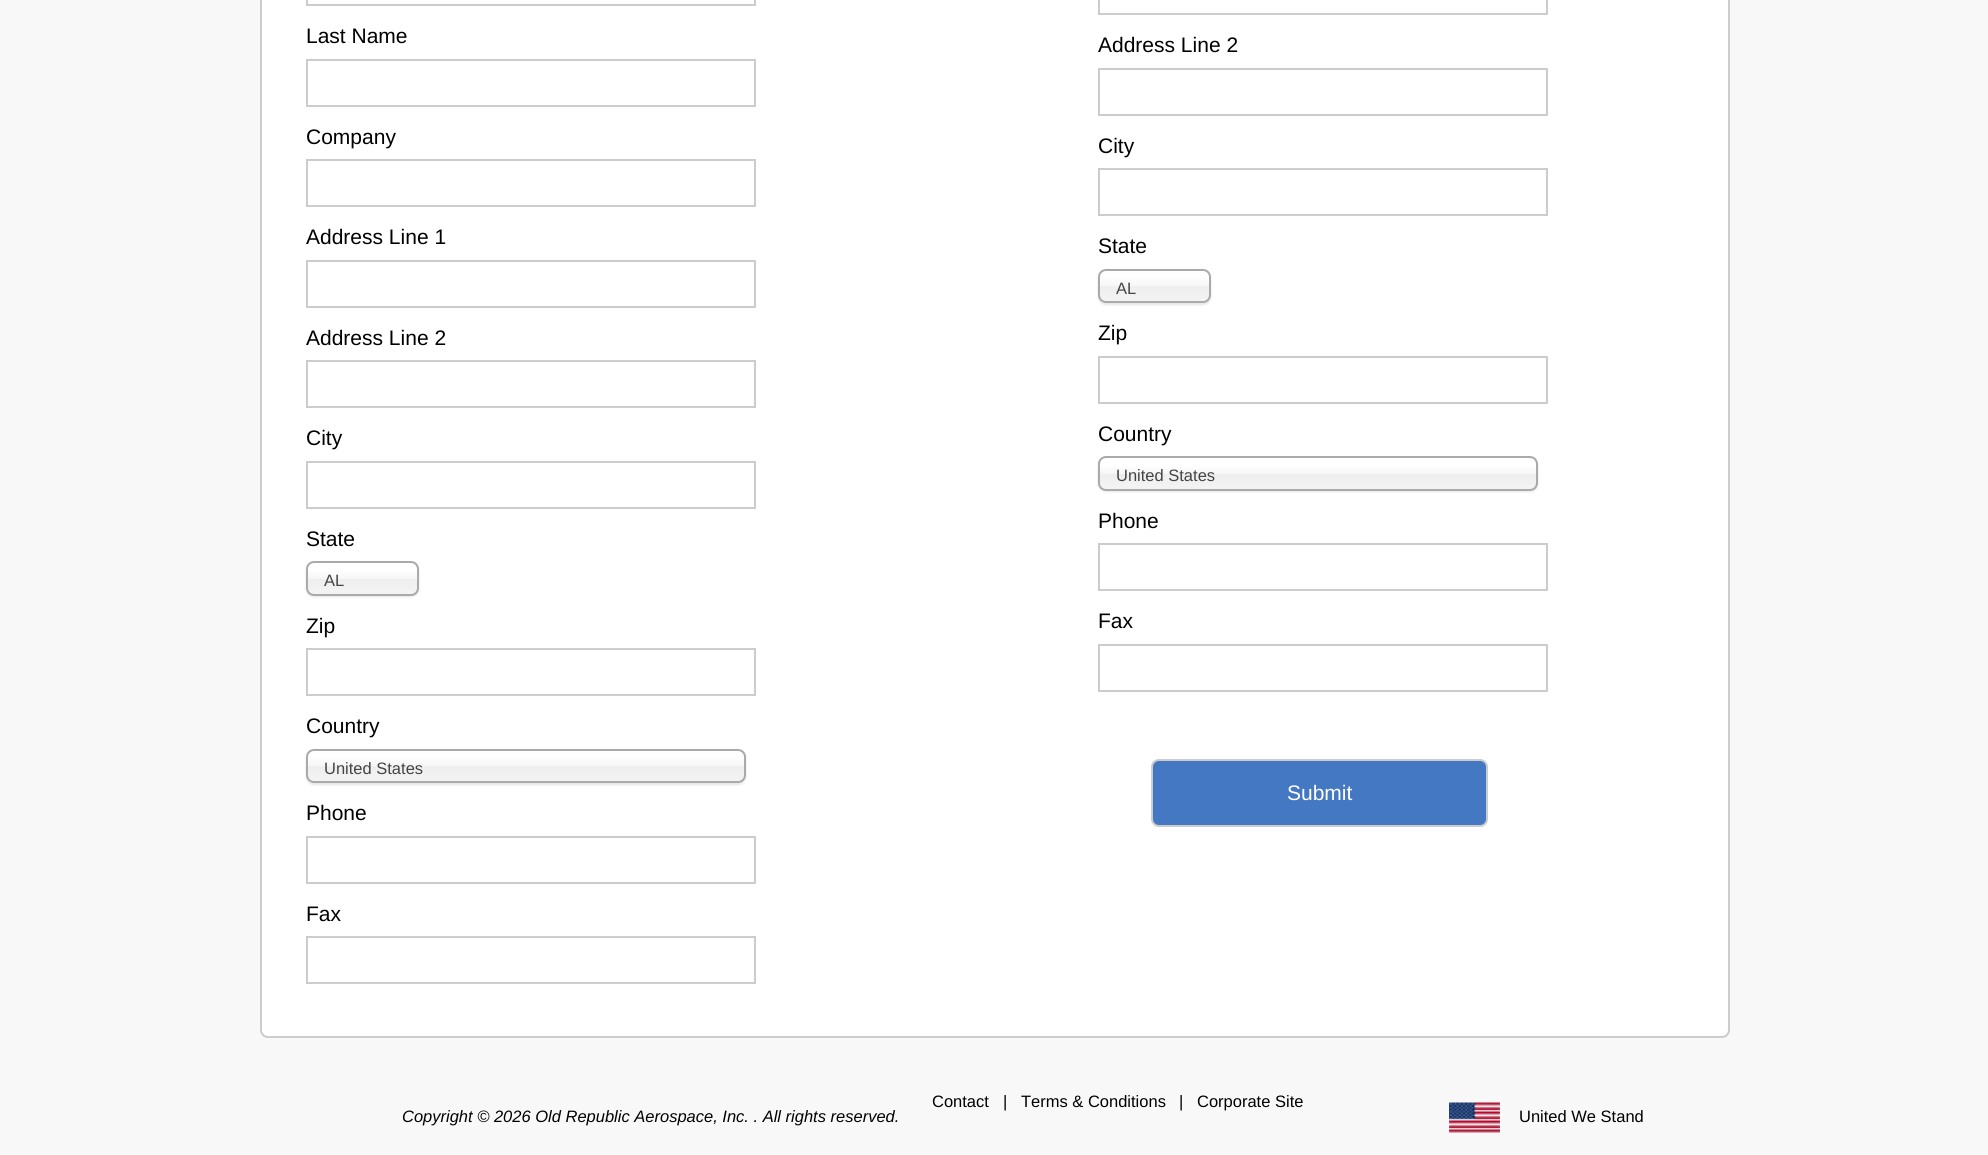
#include <cairo/cairo.h>
#include <math.h>
#include <stddef.h>

static cairo_t *cr;

static void use_color(int r, int g, int b) {
  cairo_set_source_rgb(cr, r / 255.0, g / 255.0, b / 255.0);
}

static void text(double x, double y, const char *s, const char *family, double size, int italic, int bold, int r, int g, int b) {
  cairo_select_font_face(cr, family, italic ? CAIRO_FONT_SLANT_ITALIC : CAIRO_FONT_SLANT_NORMAL,
    bold ? CAIRO_FONT_WEIGHT_BOLD : CAIRO_FONT_WEIGHT_NORMAL);
  cairo_set_font_size(cr, size);
  use_color(r, g, b);
  cairo_move_to(cr, x, y);
  cairo_show_text(cr, s);
}

static void round_rect(double x, double y, double w, double h, double r) {
  cairo_new_sub_path(cr);
  cairo_arc(cr, x + w - r, y + h - r, r, 0, M_PI / 2);
  cairo_arc(cr, x + r, y + h - r, r, M_PI / 2, M_PI);
  cairo_arc(cr, x + r, y + r, r, M_PI, 1.5 * M_PI);
  cairo_arc(cr, x + w - r, y + r, r, 1.5 * M_PI, 2 * M_PI);
  cairo_close_path(cr);
}

static void shadow(double x, double y, double w, double h, double r, double blur, double alpha) {
  cairo_push_group_with_content(cr, CAIRO_CONTENT_ALPHA);
  cairo_set_operator(cr, CAIRO_OPERATOR_SOURCE);
  for (int i = 15; i >= -15 && fmin(w, h) + blur * i / 3 > 0; i -= 2) {
    double e = blur * i / 6;
    cairo_set_source_rgba(cr, 0, 0, 0, alpha * erfc((i - 1) / 8.5) / 2);
    round_rect(x - e, y - e, w + 2 * e, h + 2 * e, fmax(0, fmin(r + e + blur * .6, fmin(w, h) / 2 + e)));
    cairo_fill(cr);
  }
  cairo_pattern_t *soft = cairo_pop_group(cr);
  cairo_mask(cr, soft);
  cairo_pattern_destroy(soft);
}

static void picture(const char *path, double x, double y, double w, double h) {
  cairo_surface_t *image = cairo_image_surface_create_from_png(path);
  cairo_save(cr);
  cairo_set_source_surface(cr, image, x, y);
  cairo_rectangle(cr, x, y, w, h);
  cairo_fill(cr);
  cairo_restore(cr);
  cairo_surface_destroy(image);
}

static void draw(void) {
  cairo_pattern_t *gradient;
  use_color(248, 248, 248);
  cairo_paint(cr);
  use_color(255, 255, 255);
  round_rect(261, -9, 1468, 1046, 7);
  cairo_fill_preserve(cr);
  use_color(204, 204, 204);
  cairo_stroke(cr);
  cairo_rectangle(cr, 307, -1, 448, 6);
  cairo_stroke(cr);
  cairo_rectangle(cr, 307, 60, 448, 46);
  cairo_stroke(cr);
  cairo_rectangle(cr, 307, 160, 448, 46);
  cairo_stroke(cr);
  cairo_rectangle(cr, 307, 261, 448, 46);
  cairo_stroke(cr);
  cairo_rectangle(cr, 307, 361, 448, 46);
  cairo_stroke(cr);
  cairo_rectangle(cr, 307, 462, 448, 46);
  cairo_stroke(cr);
  use_color(0, 0, 0);
  shadow(306, 563, 113, 34, 8, 1, 0.1);
  gradient = cairo_pattern_create_linear(362, 563, 362, 594);
  cairo_pattern_add_color_stop_rgba(gradient, 0.2, 1, 1, 1, 1);
  cairo_pattern_add_color_stop_rgba(gradient, 0.5, 0.965, 0.965, 0.965, 1);
  cairo_pattern_add_color_stop_rgba(gradient, 0.52, 0.933, 0.933, 0.933, 1);
  cairo_pattern_add_color_stop_rgba(gradient, 1, 0.957, 0.957, 0.957, 1);
  cairo_set_source(cr, gradient);
  cairo_pattern_destroy(gradient);
  round_rect(308, 563, 109, 31, 6);
  cairo_fill(cr);
  round_rect(307, 562, 111, 33, 7);
  use_color(170, 170, 170);
  cairo_stroke(cr);
  cairo_rectangle(cr, 307, 649, 448, 46);
  use_color(204, 204, 204);
  cairo_stroke(cr);
  use_color(0, 0, 0);
  shadow(306, 750, 440, 35, 8, 1, 0.1);
  gradient = cairo_pattern_create_linear(526, 750, 526, 782);
  cairo_pattern_add_color_stop_rgba(gradient, 0.2, 1, 1, 1, 1);
  cairo_pattern_add_color_stop_rgba(gradient, 0.5, 0.965, 0.965, 0.965, 1);
  cairo_pattern_add_color_stop_rgba(gradient, 0.52, 0.933, 0.933, 0.933, 1);
  cairo_pattern_add_color_stop_rgba(gradient, 1, 0.957, 0.957, 0.957, 1);
  cairo_set_source(cr, gradient);
  cairo_pattern_destroy(gradient);
  round_rect(308, 750, 436, 32, 6);
  cairo_fill(cr);
  round_rect(307, 750, 438, 32, 7);
  use_color(170, 170, 170);
  cairo_stroke(cr);
  cairo_rectangle(cr, 307, 837, 448, 46);
  use_color(204, 204, 204);
  cairo_stroke(cr);
  cairo_rectangle(cr, 307, 937, 448, 46);
  cairo_stroke(cr);
  cairo_rectangle(cr, 1099, -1, 448, 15);
  cairo_stroke(cr);
  cairo_rectangle(cr, 1099, 69, 448, 46);
  cairo_stroke(cr);
  cairo_rectangle(cr, 1099, 169, 448, 46);
  cairo_stroke(cr);
  use_color(0, 0, 0);
  shadow(1098, 270, 113, 35, 8, 1, 0.1);
  gradient = cairo_pattern_create_linear(1154, 270, 1154, 302);
  cairo_pattern_add_color_stop_rgba(gradient, 0.2, 1, 1, 1, 1);
  cairo_pattern_add_color_stop_rgba(gradient, 0.5, 0.965, 0.965, 0.965, 1);
  cairo_pattern_add_color_stop_rgba(gradient, 0.52, 0.933, 0.933, 0.933, 1);
  cairo_pattern_add_color_stop_rgba(gradient, 1, 0.957, 0.957, 0.957, 1);
  cairo_set_source(cr, gradient);
  cairo_pattern_destroy(gradient);
  round_rect(1100, 270, 109, 32, 6);
  cairo_fill(cr);
  round_rect(1099, 270, 111, 32, 7);
  use_color(170, 170, 170);
  cairo_stroke(cr);
  cairo_rectangle(cr, 1099, 357, 448, 46);
  use_color(204, 204, 204);
  cairo_stroke(cr);
  use_color(0, 0, 0);
  shadow(1098, 458, 440, 34, 8, 1, 0.1);
  gradient = cairo_pattern_create_linear(1318, 458, 1318, 489);
  cairo_pattern_add_color_stop_rgba(gradient, 0.2, 1, 1, 1, 1);
  cairo_pattern_add_color_stop_rgba(gradient, 0.5, 0.965, 0.965, 0.965, 1);
  cairo_pattern_add_color_stop_rgba(gradient, 0.52, 0.933, 0.933, 0.933, 1);
  cairo_pattern_add_color_stop_rgba(gradient, 1, 0.957, 0.957, 0.957, 1);
  cairo_set_source(cr, gradient);
  cairo_pattern_destroy(gradient);
  round_rect(1100, 458, 436, 31, 6);
  cairo_fill(cr);
  round_rect(1099, 457, 438, 33, 7);
  use_color(170, 170, 170);
  cairo_stroke(cr);
  cairo_rectangle(cr, 1099, 544, 448, 46);
  use_color(204, 204, 204);
  cairo_stroke(cr);
  cairo_rectangle(cr, 1099, 645, 448, 46);
  cairo_stroke(cr);
  use_color(68, 120, 195);
  round_rect(1152, 760, 335, 66, 7);
  cairo_fill_preserve(cr);
  use_color(204, 204, 204);
  cairo_stroke(cr);
  picture("img_01.png", 1449, 1102, 51, 31);
  text(306, 43, "Last Name", "Liberation Sans", 21, 0, 0, 0, 0, 0);
  text(306, 144, "Company", "Liberation Sans", 21, 0, 0, 0, 0, 0);
  text(306, 244, "Address Line 1", "Liberation Sans", 21, 0, 0, 0, 0, 0);
  text(306, 345, "Address Line 2", "Liberation Sans", 21, 0, 0, 0, 0, 0);
  text(306, 445, "City", "Liberation Sans", 21, 0, 0, 0, 0, 0);
  text(306, 546, "State", "Liberation Sans", 21, 0, 0, 0, 0, 0);
  text(324, 586, "AL", "Liberation Sans", 16.5, 0, 0, 68, 68, 68);
  text(306, 633, "Zip", "Liberation Sans", 21, 0, 0, 0, 0, 0);
  text(306, 733, "Country", "Liberation Sans", 21, 0, 0, 0, 0, 0);
  text(324, 774, "United States", "Liberation Sans", 16.5, 0, 0, 68, 68, 68);
  text(306, 820, "Phone", "Liberation Sans", 21, 0, 0, 0, 0, 0);
  text(306, 921, "Fax", "Liberation Sans", 21, 0, 0, 0, 0, 0);
  text(1098, 52, "Address Line 2", "Liberation Sans", 21, 0, 0, 0, 0, 0);
  text(1098, 153, "City", "Liberation Sans", 21, 0, 0, 0, 0, 0);
  text(1098, 253, "State", "Liberation Sans", 21, 0, 0, 0, 0, 0);
  text(1116, 294, "AL", "Liberation Sans", 16.5, 0, 0, 68, 68, 68);
  text(1098, 340, "Zip", "Liberation Sans", 21, 0, 0, 0, 0, 0);
  text(1098, 441, "Country", "Liberation Sans", 21, 0, 0, 0, 0, 0);
  text(1116, 481, "United States", "Liberation Sans", 16.5, 0, 0, 68, 68, 68);
  text(1098, 528, "Phone", "Liberation Sans", 21, 0, 0, 0, 0, 0);
  text(1098, 628, "Fax", "Liberation Sans", 21, 0, 0, 0, 0, 0);
  text(1287, 800, "Submit", "Liberation Sans", 21, 0, 0, 255, 255, 255);
  text(402, 1122, "Copyright © 2026 Old Republic Aerospace, Inc. . All rights reserved.", "Liberation Sans", 16.5, 1, 0, 0, 0, 0);
  text(932, 1107, "Contact", "Liberation Sans", 16.5, 0, 0, 0, 0, 0);
  text(1003, 1107, "|", "Liberation Sans", 16.5, 0, 0, 0, 0, 0);
  text(1021, 1107, "Terms & Conditions", "Liberation Sans", 16.5, 0, 0, 0, 0, 0);
  text(1179, 1107, "|", "Liberation Sans", 16.5, 0, 0, 0, 0, 0);
  text(1197, 1107, "Corporate Site", "Liberation Sans", 16.5, 0, 0, 0, 0, 0);
  text(1519, 1122, "United We Stand", "Liberation Sans", 16.5, 0, 0, 0, 0, 0);
}

int main(void) {
  cairo_surface_t *surface = cairo_image_surface_create(CAIRO_FORMAT_RGB24, 1988, 1155);
  cr = cairo_create(surface);
  cairo_font_options_t *options = cairo_font_options_create();
  cairo_font_options_set_hint_metrics(options, CAIRO_HINT_METRICS_OFF);
  cairo_font_options_set_hint_style(options, CAIRO_HINT_STYLE_NONE);
  cairo_set_font_options(cr, options);
  cairo_set_miter_limit(cr, 4);
  draw();
  cairo_surface_write_to_png(surface, "out.png");
  cairo_font_options_destroy(options);
  cairo_destroy(cr);
  cairo_surface_destroy(surface);
  return 0;
}
